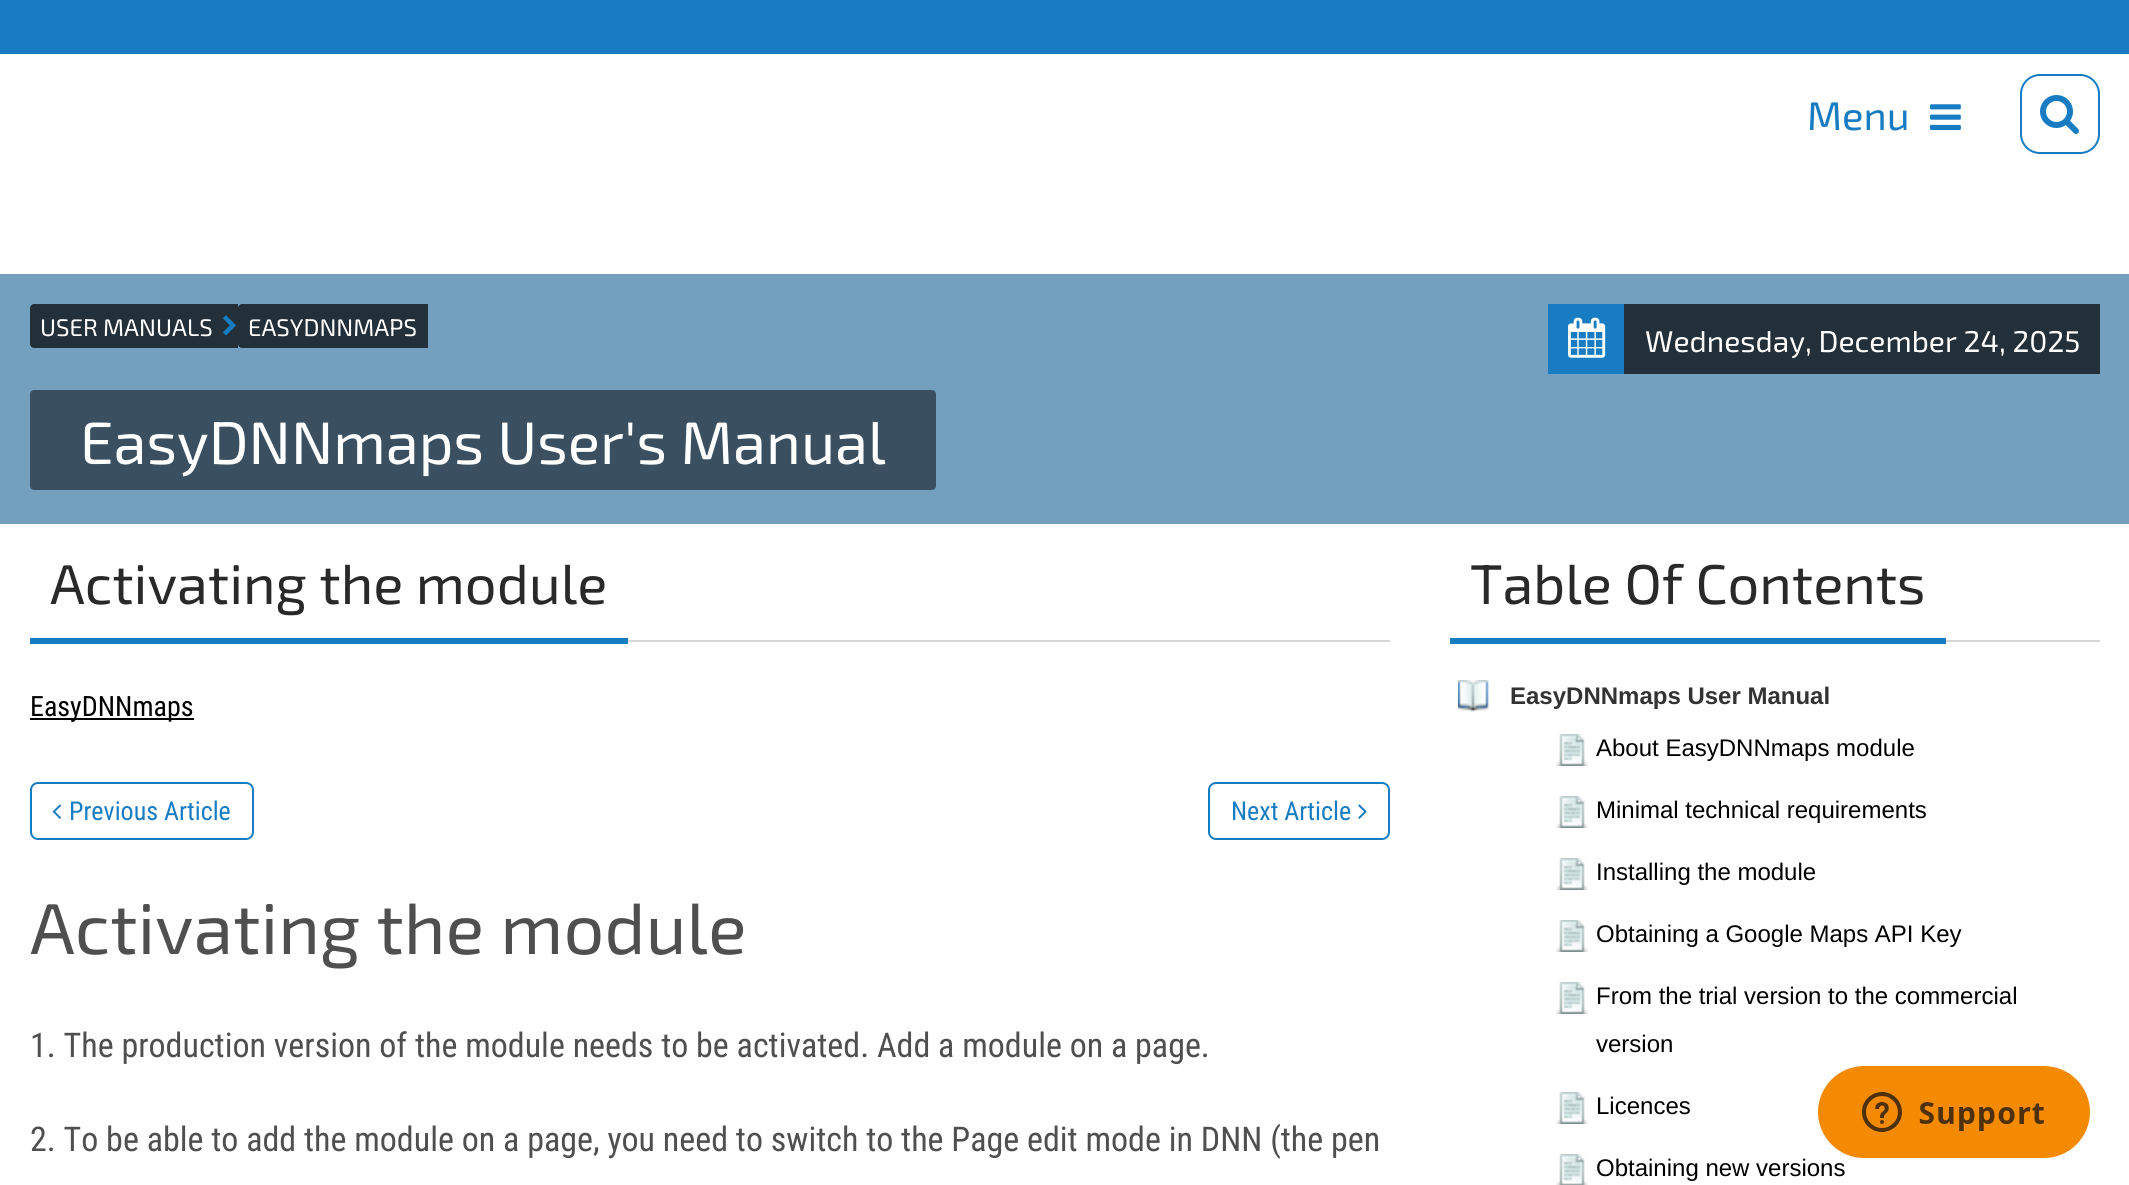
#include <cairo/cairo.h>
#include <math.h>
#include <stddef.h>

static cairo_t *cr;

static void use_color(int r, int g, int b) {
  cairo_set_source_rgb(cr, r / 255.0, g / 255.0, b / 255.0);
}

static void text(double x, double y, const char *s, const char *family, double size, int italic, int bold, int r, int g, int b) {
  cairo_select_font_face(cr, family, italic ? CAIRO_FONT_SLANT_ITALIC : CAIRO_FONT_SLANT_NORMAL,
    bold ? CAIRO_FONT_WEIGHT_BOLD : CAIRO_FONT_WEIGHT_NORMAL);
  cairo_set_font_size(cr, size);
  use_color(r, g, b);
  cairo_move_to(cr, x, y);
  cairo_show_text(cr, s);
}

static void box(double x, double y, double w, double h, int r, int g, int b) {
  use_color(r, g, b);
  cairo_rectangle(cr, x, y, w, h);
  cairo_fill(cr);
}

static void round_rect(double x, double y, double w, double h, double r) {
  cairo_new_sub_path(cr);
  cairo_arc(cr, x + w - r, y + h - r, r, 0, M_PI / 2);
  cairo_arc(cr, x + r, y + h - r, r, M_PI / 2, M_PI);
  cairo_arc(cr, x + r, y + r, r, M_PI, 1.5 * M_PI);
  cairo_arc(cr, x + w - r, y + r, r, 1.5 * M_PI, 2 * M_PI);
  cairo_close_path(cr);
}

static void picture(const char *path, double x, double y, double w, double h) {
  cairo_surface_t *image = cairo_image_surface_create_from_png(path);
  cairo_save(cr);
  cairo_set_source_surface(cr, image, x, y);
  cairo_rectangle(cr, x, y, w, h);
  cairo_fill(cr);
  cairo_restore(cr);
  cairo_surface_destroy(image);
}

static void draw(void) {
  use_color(255, 255, 255);
  cairo_paint(cr);
  box(0, 0, 2129, 54, 24, 124, 194);
  picture("img_01.png", 1930, 104, 31, 26);
  round_rect(2021, 75, 78, 78, 19);
  cairo_stroke(cr);
  picture("img_02.png", 2040, 95, 39, 39);
  box(0, 274, 2129, 250, 116, 160, 191);
  use_color(35, 48, 57);
  cairo_new_path(cr);
  cairo_move_to(cr, 34, 304);
  cairo_line_to(cr, 222, 304);
  cairo_line_to(cr, 222, 348);
  cairo_line_to(cr, 34, 348);
  cairo_curve_to(cr, 32, 348, 30, 346, 30, 344);
  cairo_line_to(cr, 30, 308);
  cairo_curve_to(cr, 30, 306, 32, 304, 34, 304);
  cairo_close_path(cr);
  cairo_fill(cr);
  box(222, 304, 16, 44, 35, 48, 57);
  picture("img_03.png", 223, 315, 13, 21);
  cairo_new_path(cr);
  cairo_move_to(cr, 242, 304);
  cairo_line_to(cr, 428, 304);
  cairo_line_to(cr, 428, 348);
  cairo_line_to(cr, 242, 348);
  cairo_curve_to(cr, 240, 348, 238, 346, 238, 344);
  cairo_line_to(cr, 238, 308);
  cairo_curve_to(cr, 238, 306, 240, 304, 242, 304);
  cairo_close_path(cr);
  cairo_fill(cr);
  box(1624, 304, 476, 70, 35, 48, 57);
  box(1548, 304, 76, 70, 24, 124, 194);
  picture("img_04.png", 1568, 317, 38, 41);
  use_color(58, 80, 96);
  round_rect(30, 390, 906, 100, 4);
  cairo_fill(cr);
  box(628, 640, 762, 2, 214, 214, 214);
  box(30, 638, 598, 6, 24, 124, 194);
  box(30, 718, 164, 2, 0, 0, 0);
  round_rect(31, 783, 222, 56, 7);
  use_color(24, 124, 194);
  cairo_stroke(cr);
  picture("img_05.png", 52, 804, 10, 15);
  round_rect(1209, 783, 180, 56, 7);
  cairo_stroke(cr);
  picture("img_06.png", 1358, 804, 9, 15);
  box(1946, 640, 154, 2, 214, 214, 214);
  box(1450, 638, 496, 6, 24, 124, 194);
  picture("img_07.png", 1458, 680, 31, 32);
  picture("img_08.png", 1556, 734, 32, 32);
  picture("img_08.png", 1556, 796, 32, 32);
  picture("img_08.png", 1556, 858, 32, 32);
  picture("img_08.png", 1556, 920, 32, 32);
  picture("img_08.png", 1556, 982, 32, 32);
  picture("img_08.png", 1556, 1092, 32, 32);
  picture("img_09.png", 1556, 1154, 32, 31);
  picture("img_10.png", 1818, 1066, 272, 92);
  text(1807, 130, "Menu", "Exo 2", 40, 0, 0, 24, 124, 194);
  text(40, 336, "USER MANUALS", "Exo 2", 24, 0, 0, 255, 255, 255);
  text(248, 336, "EASYDNNMAPS", "Exo 2", 24, 0, 0, 255, 255, 255);
  text(1645, 352, "Wednesday, December 24, 2025", "Exo 2", 30, 0, 0, 255, 255, 255);
  text(80, 464, "EasyDNNmaps User's Manual", "Exo 2", 60, 0, 0, 255, 255, 255);
  text(50, 604, "Activating the module", "Exo 2", 56, 0, 0, 41, 41, 41);
  text(30, 716, "EasyDNNmaps", "Roboto Condensed", 28, 0, 0, 0, 0, 0);
  text(69, 820, "Previous Article", "Roboto Condensed", 26, 0, 0, 24, 124, 194);
  text(1231, 820, "Next Article", "Roboto Condensed", 26, 0, 0, 24, 124, 194);
  text(30, 954, "Activating the module", "Exo 2", 72, 0, 0, 79, 79, 79);
  text(30, 1057, "1. The production version of the module needs to be activated. Add a module on a page.", "Roboto Condensed", 34, 0, 0, 79, 79, 79);
  text(30, 1151, "2. To be able to add the module on a page, you need to switch to the Page edit mode in DNN (the pen", "Roboto Condensed", 34, 0, 0, 79, 79, 79);
  text(1470, 604, "Table Of Contents", "Exo 2", 56, 0, 0, 41, 41, 41);
  text(1510, 704, "EasyDNNmaps User Manual", "Liberation Sans", 24, 0, 1, 51, 51, 51);
  text(1596, 756, "About EasyDNNmaps module", "Liberation Sans", 24, 0, 0, 0, 0, 0);
  text(1596, 818, "Minimal technical requirements", "Liberation Sans", 24, 0, 0, 0, 0, 0);
  text(1596, 880, "Installing the module", "Liberation Sans", 24, 0, 0, 0, 0, 0);
  text(1596, 942, "Obtaining a Google Maps API Key", "Liberation Sans", 24, 0, 0, 0, 0, 0);
  text(1596, 1004, "From the trial version to the commercial", "Liberation Sans", 24, 0, 0, 0, 0, 0);
  text(1596, 1052, "version", "Liberation Sans", 24, 0, 0, 0, 0, 0);
  text(1596, 1114, "Licences", "Liberation Sans", 24, 0, 0, 0, 0, 0);
  text(1596, 1176, "Obtaining new versions", "Liberation Sans", 24, 0, 0, 0, 0, 0);
}

int main(void) {
  cairo_surface_t *surface = cairo_image_surface_create(CAIRO_FORMAT_RGB24, 2129, 1185);
  cr = cairo_create(surface);
  cairo_font_options_t *options = cairo_font_options_create();
  cairo_font_options_set_hint_metrics(options, CAIRO_HINT_METRICS_OFF);
  cairo_font_options_set_hint_style(options, CAIRO_HINT_STYLE_NONE);
  cairo_set_font_options(cr, options);
  cairo_set_miter_limit(cr, 4);
  draw();
  cairo_surface_write_to_png(surface, "out.png");
  cairo_font_options_destroy(options);
  cairo_destroy(cr);
  cairo_surface_destroy(surface);
  return 0;
}
